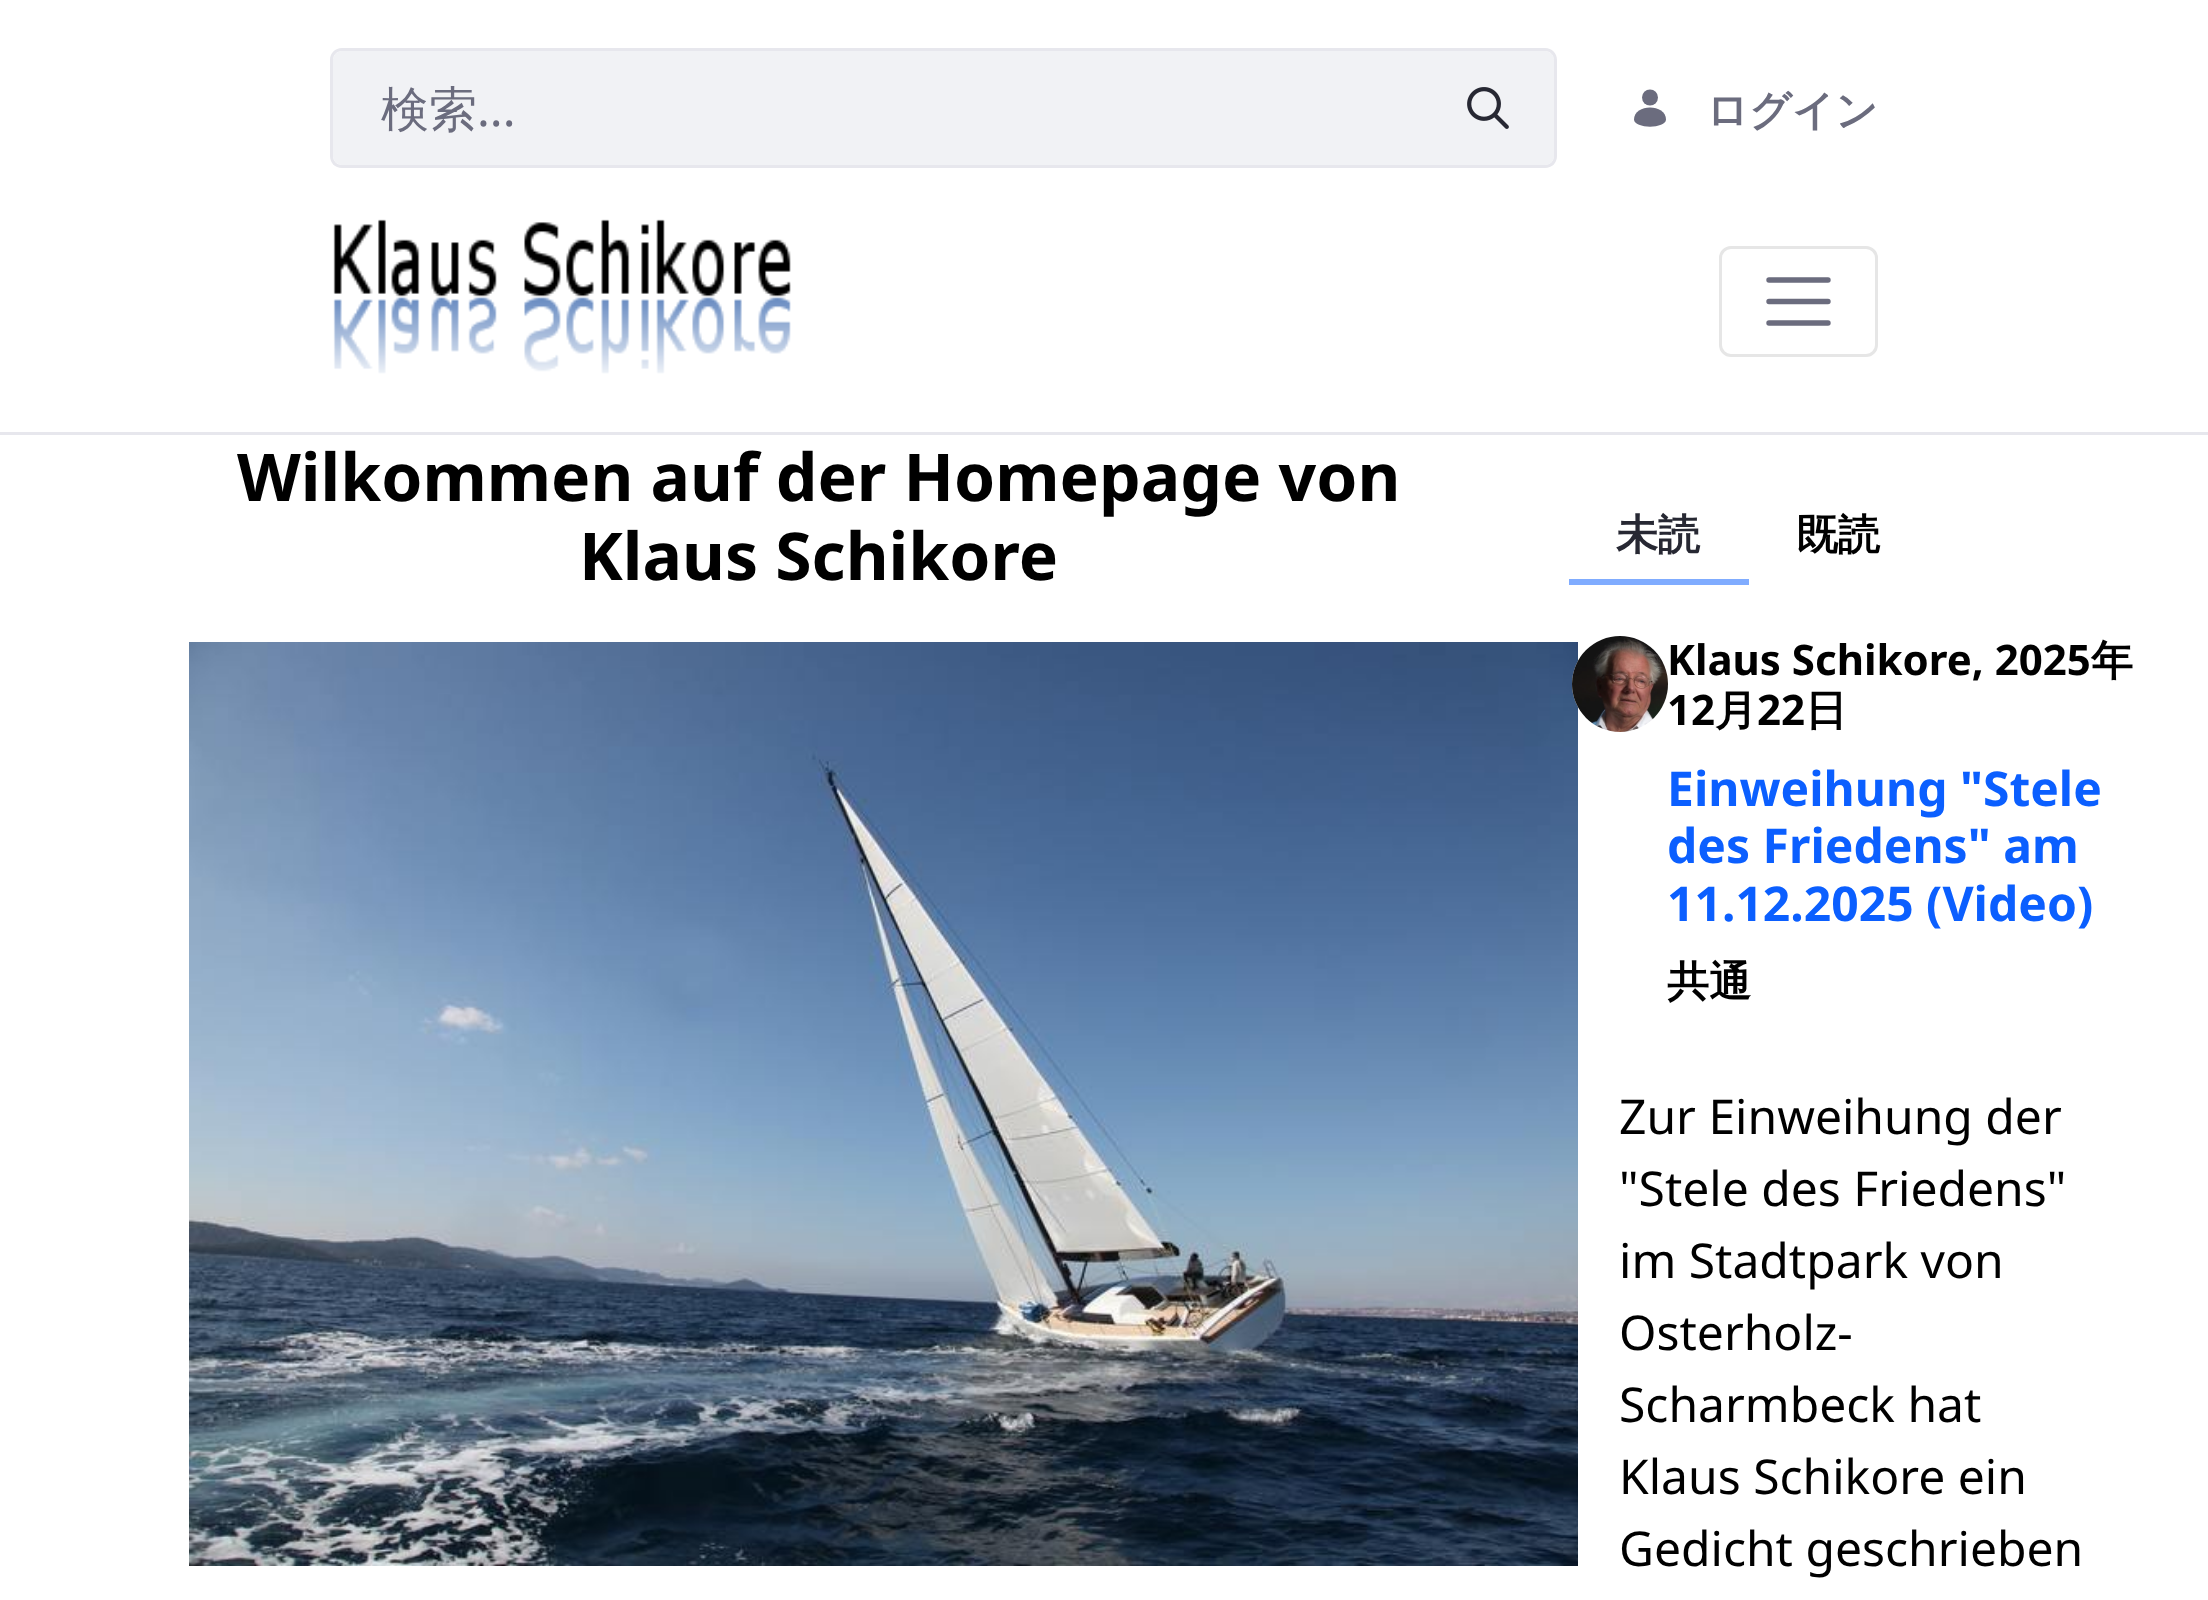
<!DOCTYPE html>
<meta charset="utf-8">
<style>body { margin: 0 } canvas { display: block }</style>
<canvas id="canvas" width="2208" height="1600"></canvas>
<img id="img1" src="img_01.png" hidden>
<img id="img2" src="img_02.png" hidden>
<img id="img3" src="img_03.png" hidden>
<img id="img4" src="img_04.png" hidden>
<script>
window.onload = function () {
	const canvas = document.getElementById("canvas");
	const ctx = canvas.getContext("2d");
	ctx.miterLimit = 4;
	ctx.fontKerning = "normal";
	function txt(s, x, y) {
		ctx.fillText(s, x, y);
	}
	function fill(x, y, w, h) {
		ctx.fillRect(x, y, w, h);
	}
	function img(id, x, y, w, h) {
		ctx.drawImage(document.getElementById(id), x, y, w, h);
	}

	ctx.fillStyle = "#FFFFFF";
	fill(0, 0, 2208, 1600);
	ctx.fillStyle = "#F1F2F5";
	ctx.beginPath();
	ctx.roundRect(333, 51, 1089, 114, [9, 0, 0, 9]);
	ctx.fill();
	ctx.fillStyle = "#E7E7ED";
	ctx.beginPath();
	ctx.moveTo(342, 48);
	ctx.lineTo(1422, 48);
	ctx.lineTo(1422, 168);
	ctx.lineTo(342, 168);
	ctx.bezierCurveTo(335, 168, 330, 163, 330, 156);
	ctx.lineTo(330, 60);
	ctx.bezierCurveTo(330, 53, 335, 48, 342, 48);
	ctx.closePath();
	ctx.moveTo(342, 51);
	ctx.lineTo(1422, 51);
	ctx.lineTo(1422, 165);
	ctx.lineTo(342, 165);
	ctx.bezierCurveTo(337, 165, 333, 161, 333, 156);
	ctx.lineTo(333, 60);
	ctx.bezierCurveTo(333, 55, 337, 51, 342, 51);
	ctx.closePath();
	ctx.fill("evenodd");
	ctx.fillStyle = "#F1F2F5";
	ctx.beginPath();
	ctx.roundRect(1422, 51, 132, 114, [0, 9, 9, 0]);
	ctx.fill();
	ctx.fillStyle = "#E7E7ED";
	ctx.beginPath();
	ctx.moveTo(1422, 48);
	ctx.lineTo(1545, 48);
	ctx.bezierCurveTo(1552, 48, 1557, 53, 1557, 60);
	ctx.lineTo(1557, 156);
	ctx.bezierCurveTo(1557, 163, 1552, 168, 1545, 168);
	ctx.lineTo(1422, 168);
	ctx.closePath();
	ctx.moveTo(1422, 51);
	ctx.lineTo(1545, 51);
	ctx.bezierCurveTo(1550, 51, 1554, 55, 1554, 60);
	ctx.lineTo(1554, 156);
	ctx.bezierCurveTo(1554, 161, 1550, 165, 1545, 165);
	ctx.lineTo(1422, 165);
	ctx.closePath();
	ctx.fill("evenodd");
	img("img1", 1467, 87, 42, 42);
	ctx.fillStyle = "#6B6C7E";
	ctx.beginPath();
	ctx.arc(1650, 97.5, 8, 0, Math.PI * 2);
	ctx.fill();
	ctx.beginPath();
	ctx.moveTo(1666, 119.5);
	ctx.bezierCurveTo(1666, 129, 1634, 129, 1634, 119.5);
	ctx.bezierCurveTo(1634, 103.5, 1666, 103.5, 1666, 119.5);
	ctx.closePath();
	ctx.fill();
	ctx.fillStyle = "#E7E7ED";
	fill(0, 432, 2208, 3);
	img("img2", 333, 219, 458, 155);
	ctx.beginPath();
	ctx.roundRect(1720.5, 247.5, 156, 108, 10.5);
	ctx.strokeStyle = "#E6E6E6";
	ctx.lineWidth = 3;
	ctx.stroke();
	ctx.beginPath();
	ctx.moveTo(1769, 280);
	ctx.lineTo(1828, 280);
	ctx.moveTo(1769, 301.5);
	ctx.lineTo(1828, 301.5);
	ctx.moveTo(1769, 323);
	ctx.lineTo(1828, 323);
	ctx.strokeStyle = "#6B6C7E";
	ctx.lineWidth = 5.4;
	ctx.lineCap = "round";
	ctx.stroke();
	img("img3", 189, 642, 1389, 924);
	ctx.fillStyle = "#80ACFF";
	fill(1569, 579, 180, 6);
	ctx.fillStyle = "#FFFFFF";
	ctx.beginPath();
	ctx.arc(1620, 684, 48, 0, Math.PI * 2);
	ctx.fill();
	img("img4", 1572, 636, 96, 96);
	ctx.font = "500 48px WenQuanYi Zen Hei";
	ctx.fillStyle = "#6B6C7E";
	txt("検索", 381, 126);
	ctx.font = "48px Noto Sans";
	txt("...", 477, 126);
	ctx.font = "bold 42px WenQuanYi Zen Hei";
	txt("ログイン", 1706, 125);
	ctx.font = "bold 66px Noto Sans";
	ctx.fillStyle = "#000000";
	txt("Wilkommen auf der Homepage von", 237, 501);
	txt("Klaus Schikore", 579, 580);
	ctx.font = "bold 42px WenQuanYi Zen Hei";
	ctx.fillStyle = "#272833";
	txt("未読", 1616, 549);
	ctx.fillStyle = "#000000";
	txt("既読", 1796, 549);
	ctx.font = "bold 42px Noto Sans";
	txt("Klaus Schikore, 2025", 1667, 675);
	ctx.font = "bold 42px WenQuanYi Zen Hei";
	txt("年", 2091, 675);
	ctx.font = "bold 42px Noto Sans";
	txt("12", 1667, 725);
	ctx.font = "bold 42px WenQuanYi Zen Hei";
	txt("月", 1715, 725);
	ctx.font = "bold 42px Noto Sans";
	txt("22", 1757, 725);
	ctx.font = "bold 42px WenQuanYi Zen Hei";
	txt("日", 1805, 725);
	ctx.font = "bold 48px Noto Sans";
	ctx.fillStyle = "#0B5FFF";
	txt("Einweihung \"Stele", 1667, 806);
	txt("des Friedens\" am", 1667, 863);
	txt("11.12.2025 (Video)", 1667, 921);
	ctx.font = "bold 42px WenQuanYi Zen Hei";
	ctx.fillStyle = "#000000";
	txt("共通", 1667, 996);
	ctx.font = "48px Noto Sans";
	txt("Zur Einweihung der", 1619, 1134);
	txt("\"Stele des Friedens\"", 1619, 1206);
	txt("im Stadtpark von", 1619, 1278);
	txt("Osterholz-", 1619, 1350);
	txt("Scharmbeck hat", 1619, 1422);
	txt("Klaus Schikore ein", 1619, 1494);
	txt("Gedicht geschrieben", 1619, 1566);
};
</script>
